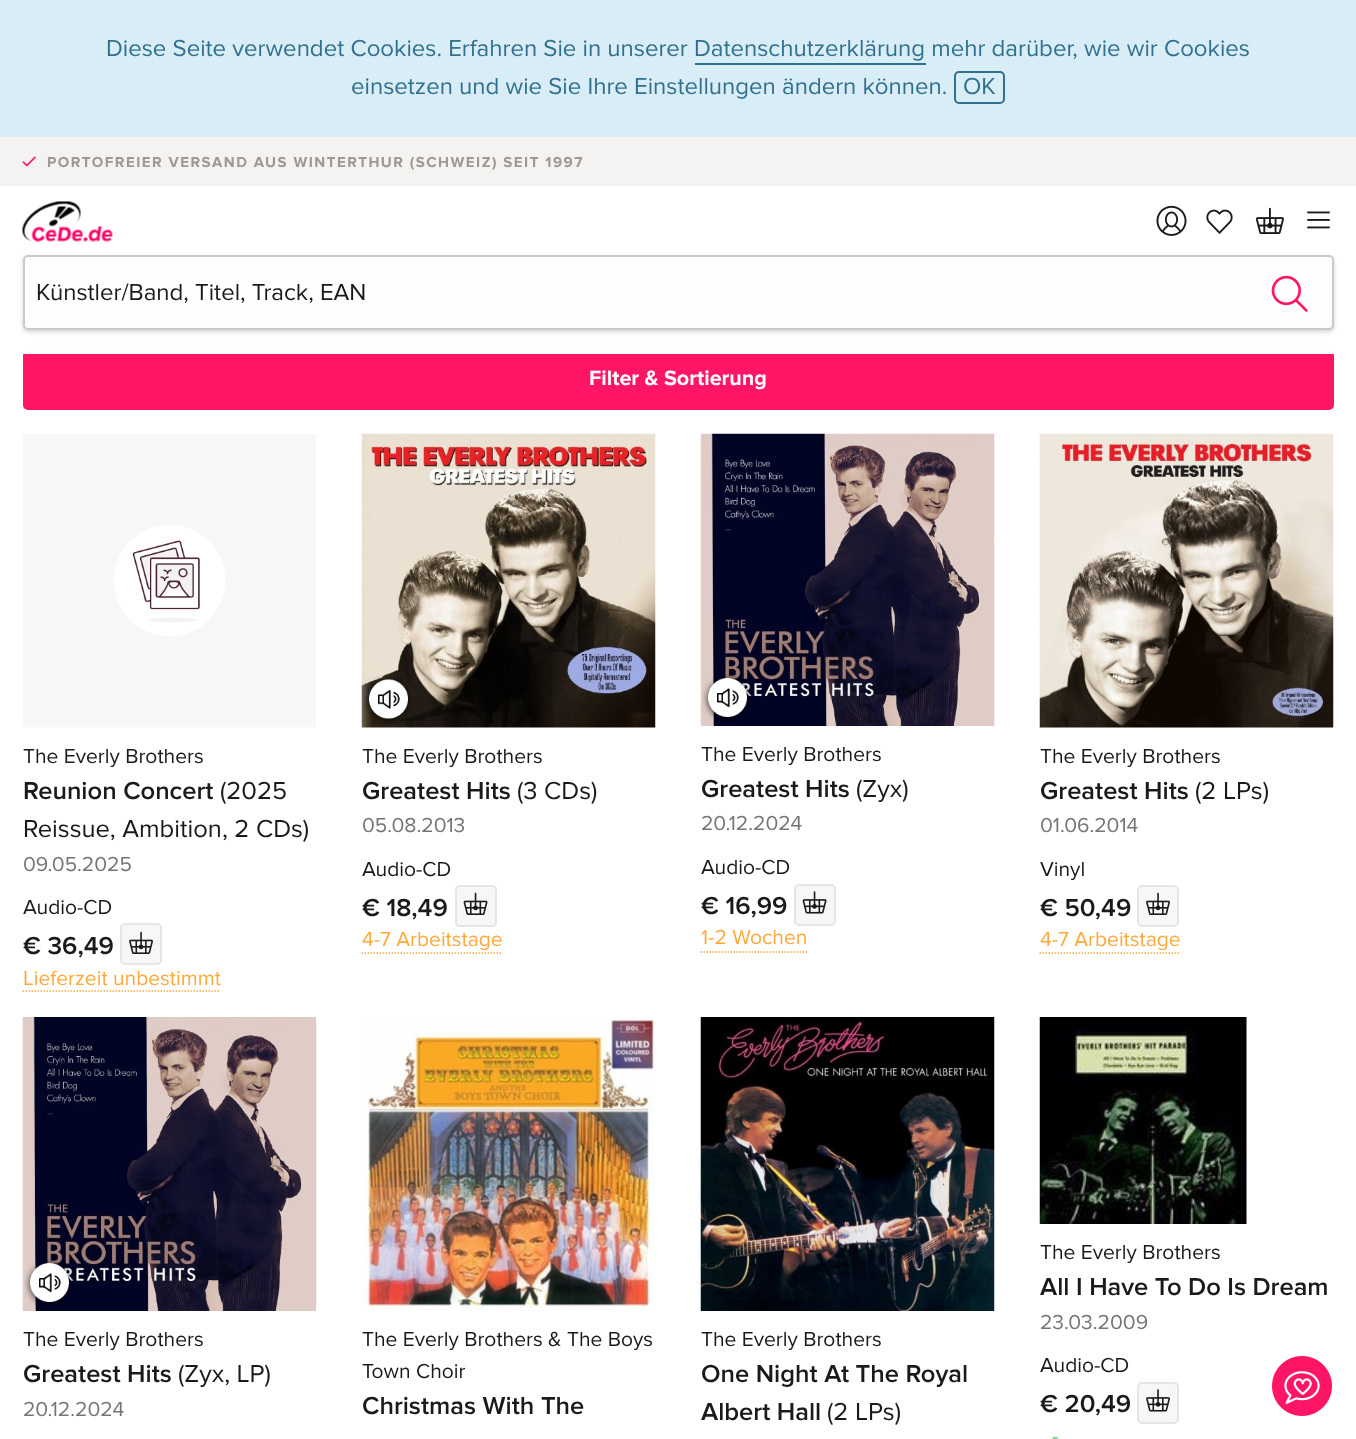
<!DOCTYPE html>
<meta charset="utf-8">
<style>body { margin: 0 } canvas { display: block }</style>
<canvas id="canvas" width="1356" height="1439"></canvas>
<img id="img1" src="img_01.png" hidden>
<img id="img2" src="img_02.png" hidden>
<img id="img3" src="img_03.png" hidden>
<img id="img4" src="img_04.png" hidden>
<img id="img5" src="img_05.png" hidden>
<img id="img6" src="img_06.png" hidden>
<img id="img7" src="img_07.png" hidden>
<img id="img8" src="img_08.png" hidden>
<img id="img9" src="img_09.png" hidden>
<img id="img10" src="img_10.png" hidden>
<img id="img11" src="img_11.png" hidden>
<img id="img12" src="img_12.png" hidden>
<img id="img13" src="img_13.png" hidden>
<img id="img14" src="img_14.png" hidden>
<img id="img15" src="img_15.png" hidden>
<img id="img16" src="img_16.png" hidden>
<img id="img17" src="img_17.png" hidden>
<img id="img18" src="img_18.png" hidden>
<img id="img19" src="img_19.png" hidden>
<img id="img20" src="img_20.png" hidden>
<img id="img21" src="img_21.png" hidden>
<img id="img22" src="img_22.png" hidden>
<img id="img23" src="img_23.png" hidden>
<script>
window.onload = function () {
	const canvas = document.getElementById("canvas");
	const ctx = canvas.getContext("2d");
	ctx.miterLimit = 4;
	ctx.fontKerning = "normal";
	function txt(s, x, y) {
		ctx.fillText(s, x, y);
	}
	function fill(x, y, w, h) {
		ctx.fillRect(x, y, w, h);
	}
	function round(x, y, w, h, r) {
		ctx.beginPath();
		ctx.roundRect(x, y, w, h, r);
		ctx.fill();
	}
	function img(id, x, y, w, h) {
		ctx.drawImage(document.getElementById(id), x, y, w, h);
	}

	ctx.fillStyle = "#FFFFFF";
	fill(0, 0, 1356, 1439);
	ctx.fillStyle = "#FF1566";
	round(23, 350, 1311, 60, 5);
	ctx.fillStyle = "#FEFEFE";
	fill(23, 350, 1311, 4);
	ctx.fillStyle = "#D9EDF7";
	fill(0, 0, 1356, 137);
	ctx.fillStyle = "#31708F";
	fill(695, 63, 231, 2);
	ctx.beginPath();
	ctx.roundRect(955, 72, 49, 31, 4);
	ctx.strokeStyle = "#31708F";
	ctx.lineWidth = 2;
	ctx.stroke();
	ctx.fillStyle = "#F4F3F1";
	fill(0, 137, 1356, 49);
	img("img1", 22, 156, 14, 11);
	img("img2", 22, 201, 91, 41);
	img("img3", 1156, 205, 31, 31);
	img("img4", 1206, 209, 27, 25);
	img("img5", 1255, 207, 29, 27);
	img("img6", 1307, 211, 23, 18);
	ctx.fillStyle = "rgba(0, 0, 0, 0.17)";
	ctx.filter = "blur(2px)";
	ctx.beginPath();
	ctx.roundRect(23, 257, 1311, 75, 5);
	ctx.fill();
	ctx.filter = "none";
	ctx.fillStyle = "#FEFEFE";
	ctx.beginPath();
	ctx.roundRect(24, 256, 1309, 73, 4);
	ctx.fill();
	ctx.strokeStyle = "#CACACA";
	ctx.stroke();
	img("img7", 1271, 275, 37, 37);
	img("img8", 23, 434, 293, 294);
	ctx.fillStyle = "#F7F7F7";
	ctx.beginPath();
	ctx.roundRect(121, 924, 40, 40, 4);
	ctx.fill();
	ctx.strokeStyle = "#E5E5E5";
	ctx.stroke();
	img("img9", 129, 931, 24, 23);
	ctx.beginPath();
	ctx.moveTo(22.5, 991);
	ctx.lineTo(220.5, 991);
	ctx.strokeStyle = "#FFA93C";
	ctx.lineWidth = 1.5;
	ctx.setLineDash([1.5, 1.5]);
	ctx.stroke();
	img("img10", 361, 433, 295, 295);
	img("img11", 364, 675, 48, 49);
	ctx.beginPath();
	ctx.roundRect(456, 886, 40, 40, 4);
	ctx.fill();
	ctx.strokeStyle = "#E5E5E5";
	ctx.lineWidth = 2;
	ctx.setLineDash([]);
	ctx.stroke();
	img("img12", 463, 892, 25, 23);
	ctx.beginPath();
	ctx.moveTo(361.5, 953);
	ctx.lineTo(502.5, 953);
	ctx.strokeStyle = "#FFA93C";
	ctx.lineWidth = 1.5;
	ctx.setLineDash([1.5, 1.5]);
	ctx.stroke();
	img("img13", 700, 433, 295, 293);
	img("img14", 702, 674, 49, 48);
	ctx.beginPath();
	ctx.roundRect(795, 885, 40, 40, 4);
	ctx.fill();
	ctx.strokeStyle = "#E5E5E5";
	ctx.lineWidth = 2;
	ctx.setLineDash([]);
	ctx.stroke();
	img("img15", 802, 891, 25, 23);
	ctx.beginPath();
	ctx.moveTo(700.5, 952);
	ctx.lineTo(807, 952);
	ctx.strokeStyle = "#FFA93C";
	ctx.lineWidth = 1.5;
	ctx.setLineDash([1.5, 1.5]);
	ctx.stroke();
	img("img16", 1039, 433, 295, 295);
	ctx.beginPath();
	ctx.roundRect(1138, 886, 40, 40, 4);
	ctx.fill();
	ctx.strokeStyle = "#E5E5E5";
	ctx.lineWidth = 2;
	ctx.setLineDash([]);
	ctx.stroke();
	img("img9", 1146, 892, 24, 23);
	ctx.beginPath();
	ctx.moveTo(1039.5, 953);
	ctx.lineTo(1180.5, 953);
	ctx.strokeStyle = "#FFA93C";
	ctx.lineWidth = 1.5;
	ctx.setLineDash([1.5, 1.5]);
	ctx.stroke();
	img("img17", 22, 1017, 295, 294);
	img("img18", 24, 1259, 49, 48);
	img("img19", 362, 1017, 293, 294);
	img("img20", 700, 1017, 295, 294);
	img("img21", 1039, 1017, 208, 207);
	ctx.beginPath();
	ctx.roundRect(1138, 1383, 40, 40, 4);
	ctx.fill();
	ctx.strokeStyle = "#E5E5E5";
	ctx.lineWidth = 2;
	ctx.setLineDash([]);
	ctx.stroke();
	img("img22", 1146, 1389, 24, 23);
	img("img23", 1272, 1356, 60, 60);
	ctx.font = "24px Proxima Nova";
	ctx.fillStyle = "#31708F";
	txt("Diese Seite verwendet Cookies. Erfahren Sie in unserer Datenschutzerklärung mehr darüber, wie wir Cookies", 106, 56);
	txt("einsetzen und wie Sie Ihre Einstellungen ändern können.", 351, 94);
	txt("OK", 963, 94);
	ctx.letterSpacing = "1.5px";
	ctx.font = "bold 15px Proxima Nova";
	ctx.fillStyle = "#9D9993";
	txt("PORTOFREIER VERSAND AUS WINTERTHUR (SCHWEIZ) SEIT 1997", 47, 167);
	ctx.letterSpacing = "0px";
	ctx.font = "24px Proxima Nova";
	ctx.fillStyle = "#1A1A1A";
	txt("Künstler/Band, Titel, Track, EAN", 36, 300);
	ctx.font = "bold 21.5px Proxima Nova";
	ctx.fillStyle = "#FEFEFE";
	txt("Filter & Sortierung", 589, 385);
	ctx.font = "21px Proxima Nova";
	ctx.fillStyle = "#1A1A1A";
	txt("The Everly Brothers", 23, 763);
	ctx.font = "600 25.5px Proxima Nova";
	txt("Reunion Concert", 23, 799);
	ctx.font = "25.5px Proxima Nova";
	txt("(2025", 220, 799);
	txt("Reissue, Ambition, 2 CDs)", 23, 837);
	ctx.font = "21px Proxima Nova";
	ctx.fillStyle = "#767676";
	txt("09.05.2025", 23, 871);
	ctx.fillStyle = "#1A1A1A";
	txt("Audio-CD", 23, 914);
	ctx.font = "600 25.5px Proxima Nova";
	txt("€ 36,49", 23, 954);
	ctx.font = "21px Proxima Nova";
	ctx.fillStyle = "#FFA93C";
	txt("Lieferzeit unbestimmt", 23, 985);
	ctx.fillStyle = "#1A1A1A";
	txt("The Everly Brothers", 362, 763);
	ctx.font = "600 25.5px Proxima Nova";
	txt("Greatest Hits", 362, 799);
	ctx.font = "25.5px Proxima Nova";
	txt("(3 CDs)", 517, 799);
	ctx.font = "21px Proxima Nova";
	ctx.fillStyle = "#767676";
	txt("05.08.2013", 362, 832);
	ctx.fillStyle = "#1A1A1A";
	txt("Audio-CD", 362, 876);
	ctx.font = "600 25.5px Proxima Nova";
	txt("€ 18,49", 362, 916);
	ctx.font = "21px Proxima Nova";
	ctx.fillStyle = "#FFA93C";
	txt("4-7 Arbeitstage", 362, 946);
	ctx.fillStyle = "#1A1A1A";
	txt("The Everly Brothers", 701, 761);
	ctx.font = "600 25.5px Proxima Nova";
	txt("Greatest Hits", 701, 797);
	ctx.font = "25.5px Proxima Nova";
	txt("(Zyx)", 856, 797);
	ctx.font = "21px Proxima Nova";
	ctx.fillStyle = "#767676";
	txt("20.12.2024", 701, 830);
	ctx.fillStyle = "#1A1A1A";
	txt("Audio-CD", 701, 874);
	ctx.font = "600 25.5px Proxima Nova";
	txt("€ 16,99", 701, 914);
	ctx.font = "21px Proxima Nova";
	ctx.fillStyle = "#FFA93C";
	txt("1-2 Wochen", 701, 944);
	ctx.fillStyle = "#1A1A1A";
	txt("The Everly Brothers", 1040, 763);
	ctx.font = "600 25.5px Proxima Nova";
	txt("Greatest Hits", 1040, 799);
	ctx.font = "25.5px Proxima Nova";
	txt("(2 LPs)", 1195, 799);
	ctx.font = "21px Proxima Nova";
	ctx.fillStyle = "#767676";
	txt("01.06.2014", 1040, 832);
	ctx.fillStyle = "#1A1A1A";
	txt("Vinyl", 1040, 876);
	ctx.font = "600 25.5px Proxima Nova";
	txt("€ 50,49", 1040, 916);
	ctx.font = "21px Proxima Nova";
	ctx.fillStyle = "#FFA93C";
	txt("4-7 Arbeitstage", 1040, 946);
	ctx.fillStyle = "#1A1A1A";
	txt("The Everly Brothers", 23, 1346);
	ctx.font = "600 25.5px Proxima Nova";
	txt("Greatest Hits", 23, 1382);
	ctx.font = "25.5px Proxima Nova";
	txt("(Zyx, LP)", 178, 1382);
	ctx.font = "21px Proxima Nova";
	ctx.fillStyle = "#767676";
	txt("20.12.2024", 23, 1416);
	ctx.fillStyle = "#1A1A1A";
	txt("The Everly Brothers & The Boys", 362, 1346);
	txt("Town Choir", 362, 1378);
	ctx.font = "600 25.5px Proxima Nova";
	txt("Christmas With The", 362, 1414);
	ctx.font = "21px Proxima Nova";
	txt("The Everly Brothers", 701, 1346);
	ctx.font = "600 25.5px Proxima Nova";
	txt("One Night At The Royal", 701, 1382);
	txt("Albert Hall", 701, 1420);
	ctx.font = "25.5px Proxima Nova";
	txt("(2 LPs)", 827, 1420);
	ctx.font = "21px Proxima Nova";
	txt("The Everly Brothers", 1040, 1259);
	ctx.font = "600 25.5px Proxima Nova";
	txt("All I Have To Do Is Dream", 1040, 1295);
	ctx.font = "21px Proxima Nova";
	ctx.fillStyle = "#767676";
	txt("23.03.2009", 1040, 1329);
	ctx.fillStyle = "#1A1A1A";
	txt("Audio-CD", 1040, 1372);
	ctx.font = "600 25.5px Proxima Nova";
	txt("€ 20,49", 1040, 1412);
	ctx.font = "21px Proxima Nova";
	ctx.fillStyle = "#6BBD6E";
	txt("-", 1052, 1443);
};
</script>
